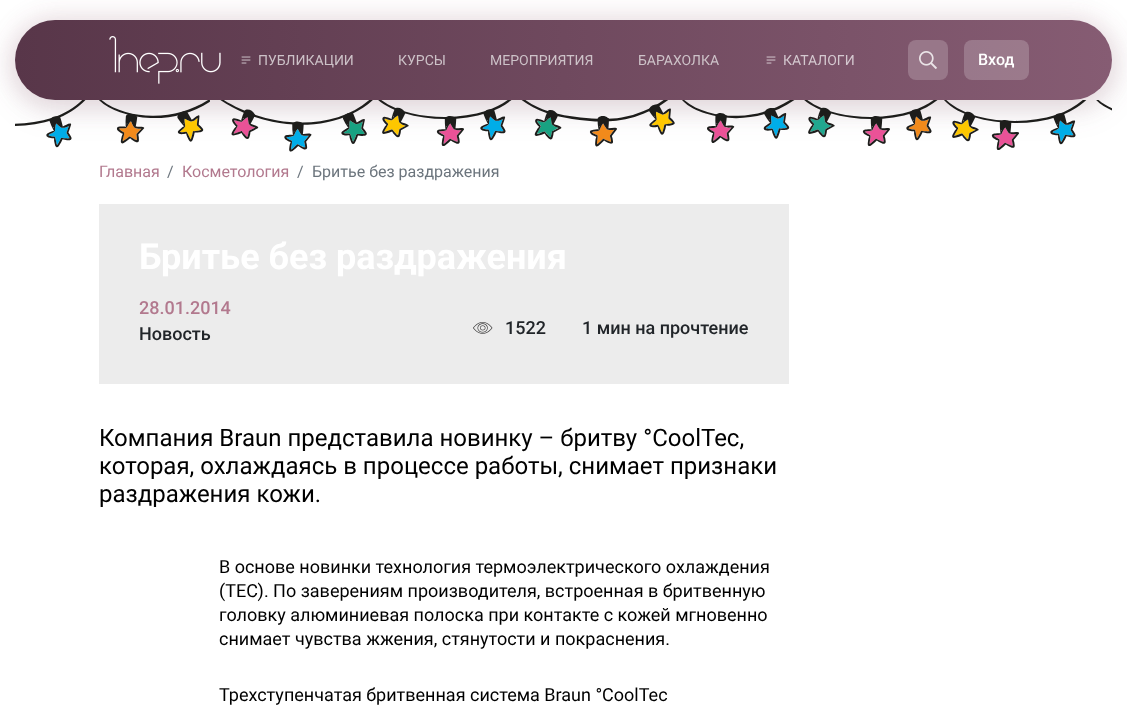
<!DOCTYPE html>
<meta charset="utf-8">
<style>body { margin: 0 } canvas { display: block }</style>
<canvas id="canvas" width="1127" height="711"></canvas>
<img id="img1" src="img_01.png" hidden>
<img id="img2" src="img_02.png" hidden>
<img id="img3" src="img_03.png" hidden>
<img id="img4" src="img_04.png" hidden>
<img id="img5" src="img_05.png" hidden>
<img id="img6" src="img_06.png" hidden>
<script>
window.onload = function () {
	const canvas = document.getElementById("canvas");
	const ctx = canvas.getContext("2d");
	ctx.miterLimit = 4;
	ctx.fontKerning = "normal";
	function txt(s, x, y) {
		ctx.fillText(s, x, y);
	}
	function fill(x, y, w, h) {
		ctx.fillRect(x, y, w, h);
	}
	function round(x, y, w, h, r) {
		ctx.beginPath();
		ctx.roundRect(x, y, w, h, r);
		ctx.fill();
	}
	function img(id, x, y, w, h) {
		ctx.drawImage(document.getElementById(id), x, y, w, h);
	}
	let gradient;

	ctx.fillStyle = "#FFFFFF";
	fill(0, 0, 1127, 711);
	ctx.fillStyle = "rgba(88, 54, 73, 0.16)";
	ctx.filter = "blur(16px)";
	ctx.beginPath();
	ctx.roundRect(15, 28, 1097, 80, 40);
	ctx.fill();
	ctx.filter = "none";
	ctx.fillStyle = "rgba(178, 121, 142, 0.12)";
	ctx.filter = "blur(10px)";
	ctx.beginPath();
	ctx.roundRect(7, 12, 1113, 96, 48);
	ctx.fill();
	ctx.filter = "none";
	gradient = ctx.createLinearGradient(15, 60, 1112, 60);
	gradient.addColorStop(0, "#583649");
	gradient.addColorStop(1, "#865C73");
	ctx.fillStyle = gradient;
	round(15, 20, 1097, 80, 40);
	img("img1", 109, 36, 112, 48);
	img("img2", 241, 56, 10, 8);
	img("img3", 766, 56, 10, 8);
	ctx.fillStyle = "#987789";
	round(908, 40, 40, 40, 8);
	img("img4", 919, 51, 18, 18);
	ctx.fillStyle = "rgba(255, 255, 255, 0.2)";
	round(964, 40, 65, 40, 8);
	img("img5", 15, 100, 1097, 52);
	ctx.fillStyle = "#ECECEC";
	fill(99, 204, 690, 180);
	img("img6", 473, 322, 20, 12);
	ctx.font = "14px Roboto";
	ctx.fillStyle = "#CDC2C8";
	txt("ПУБЛИКАЦИИ", 258, 65);
	txt("КУРСЫ", 398, 65);
	txt("МЕРОПРИЯТИЯ", 490, 65);
	txt("БАРАХОЛКА", 638, 65);
	ctx.fillStyle = "#D4C8CF";
	txt("КАТАЛОГИ", 783, 65);
	ctx.font = "500 16px Roboto";
	ctx.fillStyle = "#FFFFFF";
	txt("Вход", 978, 65);
	ctx.font = "16px Roboto";
	ctx.fillStyle = "#B2798E";
	txt("Главная", 99, 177);
	ctx.fillStyle = "#6C757D";
	txt("/", 167, 177);
	ctx.fillStyle = "#B2798E";
	txt("Косметология", 182, 177);
	ctx.fillStyle = "#6C757D";
	txt("/", 297, 177);
	txt("Бритье без раздражения", 312, 177);
	ctx.font = "bold 36px Roboto";
	ctx.fillStyle = "#FFFFFF";
	txt("Бритье без раздражения", 139, 269);
	ctx.font = "500 18px Roboto";
	ctx.fillStyle = "#B2798E";
	txt("28.01.2014", 139, 314);
	ctx.fillStyle = "#212529";
	txt("Новость", 139, 340);
	txt("1522", 505, 334);
	txt("1 мин на прочтение", 582, 334);
	ctx.font = "24px Roboto";
	ctx.fillStyle = "#000000";
	txt("Компания Braun представила новинку – бритву °CoolTec,", 99, 446);
	txt("которая, охлаждаясь в процессе работы, снимает признаки", 99, 474);
	txt("раздражения кожи.", 99, 502);
	ctx.font = "18px Roboto";
	txt("В основе новинки технология термоэлектрического охлаждения", 219, 573);
	txt("(TEC). По заверениям производителя, встроенная в бритвенную", 219, 597);
	txt("головку алюминиевая полоска при контакте с кожей мгновенно", 219, 621);
	txt("снимает чувства жжения, стянутости и покраснения.", 219, 645);
	txt("Трехступенчатая бритвенная система Braun °CoolTec", 219, 701);
};
</script>
